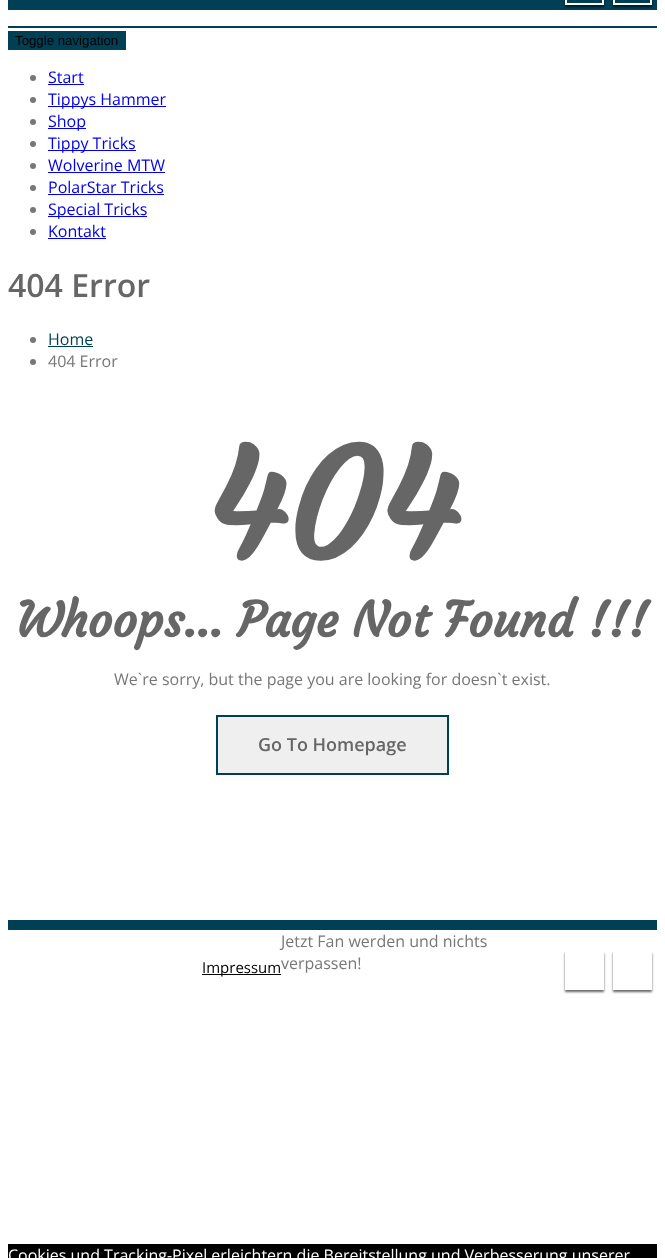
<!DOCTYPE html>
<meta charset="utf-8">
<style>body { margin: 0 } canvas { display: block }</style>
<canvas id="canvas" width="665" height="1258"></canvas>
<script>
window.onload = function () {
	const canvas = document.getElementById("canvas");
	const ctx = canvas.getContext("2d");
	ctx.miterLimit = 4;
	ctx.fontKerning = "normal";
	function txt(s, x, y) {
		ctx.fillText(s, x, y);
	}
	function fill(x, y, w, h) {
		ctx.fillRect(x, y, w, h);
	}

	ctx.fillStyle = "#FFFFFF";
	fill(0, 0, 665, 1258);
	ctx.fillStyle = "#003F54";
	fill(8, 0, 649, 10);
	ctx.save();
	ctx.beginPath();
	ctx.moveTo(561, 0);
	ctx.lineTo(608, 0);
	ctx.lineTo(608, 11);
	ctx.lineTo(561, 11);
	ctx.closePath();
	ctx.moveTo(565, -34);
	ctx.lineTo(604, -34);
	ctx.lineTo(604, 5);
	ctx.lineTo(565, 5);
	ctx.closePath();
	ctx.clip("evenodd");
	ctx.fillStyle = "rgba(0, 0, 0, 0.6)";
	ctx.filter = "blur(1px)";
	ctx.beginPath();
	ctx.rect(565, -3, 39, 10);
	ctx.fill();
	ctx.filter = "none";
	ctx.restore();
	ctx.strokeStyle = "#FFFFFF";
	ctx.lineWidth = 2;
	ctx.strokeRect(566, -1, 37, 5);
	ctx.save();
	ctx.beginPath();
	ctx.moveTo(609, 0);
	ctx.lineTo(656, 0);
	ctx.lineTo(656, 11);
	ctx.lineTo(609, 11);
	ctx.closePath();
	ctx.moveTo(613, -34);
	ctx.lineTo(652, -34);
	ctx.lineTo(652, 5);
	ctx.lineTo(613, 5);
	ctx.closePath();
	ctx.clip("evenodd");
	ctx.fillStyle = "rgba(0, 0, 0, 0.6)";
	ctx.filter = "blur(1px)";
	ctx.beginPath();
	ctx.rect(613, -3, 39, 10);
	ctx.fill();
	ctx.filter = "none";
	ctx.restore();
	ctx.strokeRect(614, -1, 37, 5);
	fill(8, 26, 649, 2);
	fill(8, 31, 118, 19);
	ctx.fillStyle = "#777777";
	ctx.beginPath();
	ctx.arc(33, 78, 3, 0, Math.PI * 2);
	ctx.fill();
	ctx.fillStyle = "#0000EE";
	fill(48, 84, 36, 1);
	ctx.fillStyle = "#777777";
	ctx.beginPath();
	ctx.arc(33, 100, 3, 0, Math.PI * 2);
	ctx.fill();
	ctx.fillStyle = "#0000EE";
	fill(48, 106, 118, 1);
	ctx.fillStyle = "#777777";
	ctx.beginPath();
	ctx.arc(33, 122, 3, 0, Math.PI * 2);
	ctx.fill();
	ctx.fillStyle = "#0000EE";
	fill(48, 128, 38, 1);
	ctx.fillStyle = "#777777";
	ctx.beginPath();
	ctx.arc(33, 144, 3, 0, Math.PI * 2);
	ctx.fill();
	ctx.fillStyle = "#0000EE";
	fill(48, 150, 88, 1);
	ctx.fillStyle = "#777777";
	ctx.beginPath();
	ctx.arc(33, 166, 3, 0, Math.PI * 2);
	ctx.fill();
	ctx.fillStyle = "#0000EE";
	fill(48, 172, 117, 1);
	ctx.fillStyle = "#777777";
	ctx.beginPath();
	ctx.arc(33, 188, 3, 0, Math.PI * 2);
	ctx.fill();
	ctx.fillStyle = "#0000EE";
	fill(48, 194, 116, 1);
	ctx.fillStyle = "#777777";
	ctx.beginPath();
	ctx.arc(33, 210, 3, 0, Math.PI * 2);
	ctx.fill();
	ctx.fillStyle = "#0000EE";
	fill(48, 216, 99, 1);
	ctx.fillStyle = "#777777";
	ctx.beginPath();
	ctx.arc(33, 232, 3, 0, Math.PI * 2);
	ctx.fill();
	ctx.fillStyle = "#0000EE";
	fill(48, 238, 58, 1);
	ctx.fillStyle = "#777777";
	ctx.beginPath();
	ctx.arc(33, 340, 3, 0, Math.PI * 2);
	ctx.fill();
	ctx.fillStyle = "#003F54";
	fill(48, 346, 45, 1);
	ctx.fillStyle = "#777777";
	ctx.beginPath();
	ctx.arc(33, 362, 3, 0, Math.PI * 2);
	ctx.fill();
	ctx.fillStyle = "#EFEFEF";
	ctx.beginPath();
	ctx.rect(217, 716, 231, 58);
	ctx.fill();
	ctx.strokeStyle = "#003F54";
	ctx.stroke();
	ctx.fillStyle = "#003F54";
	fill(8, 920, 649, 10);
	ctx.fillStyle = "#000000";
	fill(202, 974, 79, 1);
	ctx.save();
	ctx.beginPath();
	ctx.moveTo(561, 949);
	ctx.lineTo(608, 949);
	ctx.lineTo(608, 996);
	ctx.lineTo(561, 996);
	ctx.closePath();
	ctx.moveTo(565, 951);
	ctx.lineTo(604, 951);
	ctx.lineTo(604, 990);
	ctx.lineTo(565, 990);
	ctx.closePath();
	ctx.clip("evenodd");
	ctx.fillStyle = "rgba(0, 0, 0, 0.6)";
	ctx.filter = "blur(1px)";
	ctx.beginPath();
	ctx.rect(565, 953, 39, 39);
	ctx.fill();
	ctx.filter = "none";
	ctx.restore();
	ctx.save();
	ctx.beginPath();
	ctx.moveTo(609, 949);
	ctx.lineTo(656, 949);
	ctx.lineTo(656, 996);
	ctx.lineTo(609, 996);
	ctx.closePath();
	ctx.moveTo(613, 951);
	ctx.lineTo(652, 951);
	ctx.lineTo(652, 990);
	ctx.lineTo(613, 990);
	ctx.closePath();
	ctx.clip("evenodd");
	ctx.fillStyle = "rgba(0, 0, 0, 0.6)";
	ctx.filter = "blur(1px)";
	ctx.beginPath();
	ctx.rect(613, 953, 39, 39);
	ctx.fill();
	ctx.filter = "none";
	ctx.restore();
	fill(8, 1244, 649, 14);
	ctx.font = "13.25px Liberation Sans";
	txt("Toggle navigation", 15, 45);
	ctx.font = "16px Open Sans";
	ctx.fillStyle = "#0000EE";
	txt("Start", 48, 83);
	txt("Tippys Hammer", 48, 105);
	txt("Shop", 48, 127);
	txt("Tippy Tricks", 48, 149);
	txt("Wolverine MTW", 48, 171);
	txt("PolarStar Tricks", 48, 193);
	txt("Special Tricks", 48, 215);
	txt("Kontakt", 48, 237);
	ctx.font = "600 32px Open Sans";
	ctx.fillStyle = "#666666";
	txt("404 Error", 8, 297);
	ctx.font = "16px Open Sans";
	ctx.fillStyle = "#003F54";
	txt("Home", 48, 345);
	ctx.fillStyle = "#777777";
	txt("404 Error", 48, 367);
	ctx.font = "bold 150px Courgette";
	ctx.fillStyle = "#666666";
	txt("404", 206, 560);
	ctx.font = "bold 48px Courgette";
	txt("Whoops... Page Not Found !!!", 16, 637);
	ctx.font = "16px Open Sans";
	ctx.fillStyle = "#777777";
	txt("We`re sorry, but the page you are looking for doesn`t exist.", 114, 685);
	ctx.font = "600 18px Open Sans";
	ctx.fillStyle = "#666666";
	txt("Go To Homepage", 258, 751);
	ctx.font = "15px Open Sans";
	ctx.fillStyle = "#000000";
	txt("Impressum", 202, 973);
	ctx.font = "16px Open Sans";
	ctx.fillStyle = "#777777";
	txt("Jetzt Fan werden und nichts", 281, 947);
	txt("verpassen!", 281, 969);
	ctx.fillStyle = "#FFFFFF";
	txt("Cookies und Tracking-Pixel erleichtern die Bereitstellung und Verbesserung unserer", 8, 1261);
};
</script>
